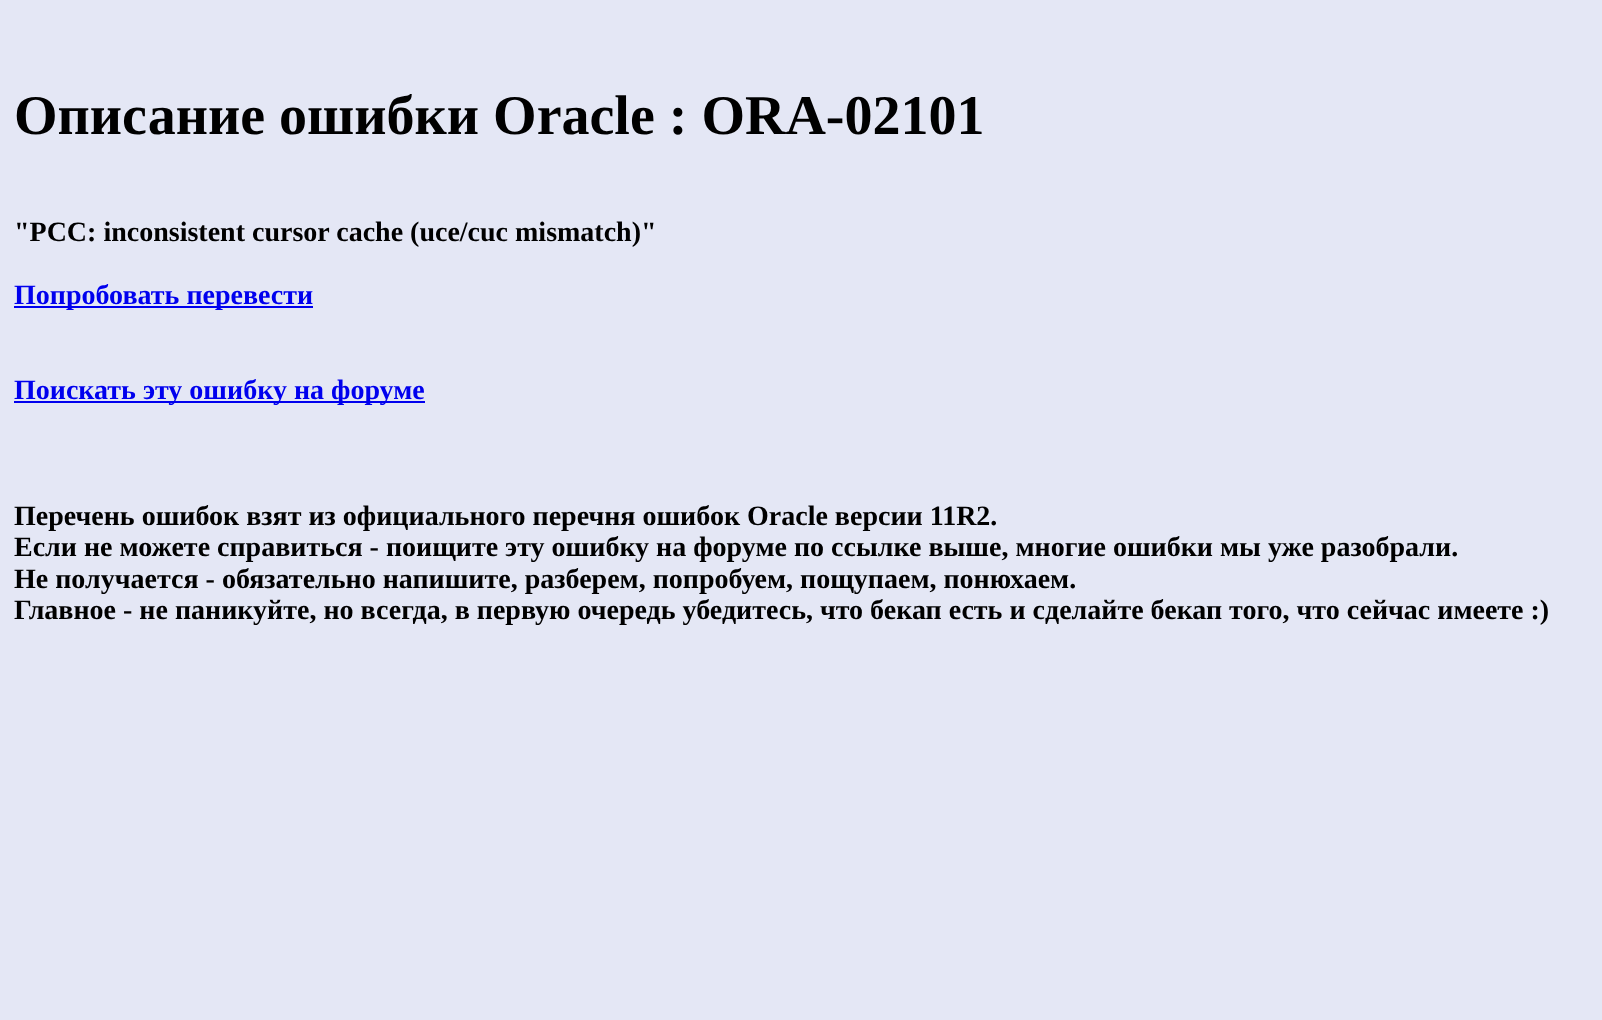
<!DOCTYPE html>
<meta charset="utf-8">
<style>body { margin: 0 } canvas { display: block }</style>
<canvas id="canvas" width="1602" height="1020"></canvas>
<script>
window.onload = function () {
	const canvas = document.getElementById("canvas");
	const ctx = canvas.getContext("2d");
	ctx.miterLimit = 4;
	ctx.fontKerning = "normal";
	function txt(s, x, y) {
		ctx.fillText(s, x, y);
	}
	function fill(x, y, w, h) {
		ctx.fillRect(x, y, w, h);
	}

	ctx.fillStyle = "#E4E7F5";
	fill(0, 0, 1602, 1020);
	ctx.fillStyle = "#0000EE";
	fill(14, 306, 299, 2);
	fill(14, 401, 411, 2);
	ctx.font = "bold 56px Liberation Serif";
	ctx.fillStyle = "#000000";
	txt("Описание ошибки Oracle : ORA-02101", 14, 134);
	ctx.font = "bold 28px Liberation Serif";
	txt("\"PCC: inconsistent cursor cache (uce/cuc mismatch)\"", 14, 241);
	ctx.fillStyle = "#0000EE";
	txt("Попробовать перевести", 14, 304);
	txt("Поискать эту ошибку на форуме", 14, 399);
	ctx.fillStyle = "#000000";
	txt("Перечень ошибок взят из официального перечня ошибок Oracle версии 11R2.", 14, 525);
	txt("Если не можете справиться - поищите эту ошибку на форуме по ссылке выше, многие ошибки мы уже разобрали.", 14, 556);
	txt("Не получается - обязательно напишите, разберем, попробуем, пощупаем, понюхаем.", 14, 588);
	txt("Главное - не паникуйте, но всегда, в первую очередь убедитесь, что бекап есть и сделайте бекап того, что сейчас имеете :)", 14, 619);
};
</script>
